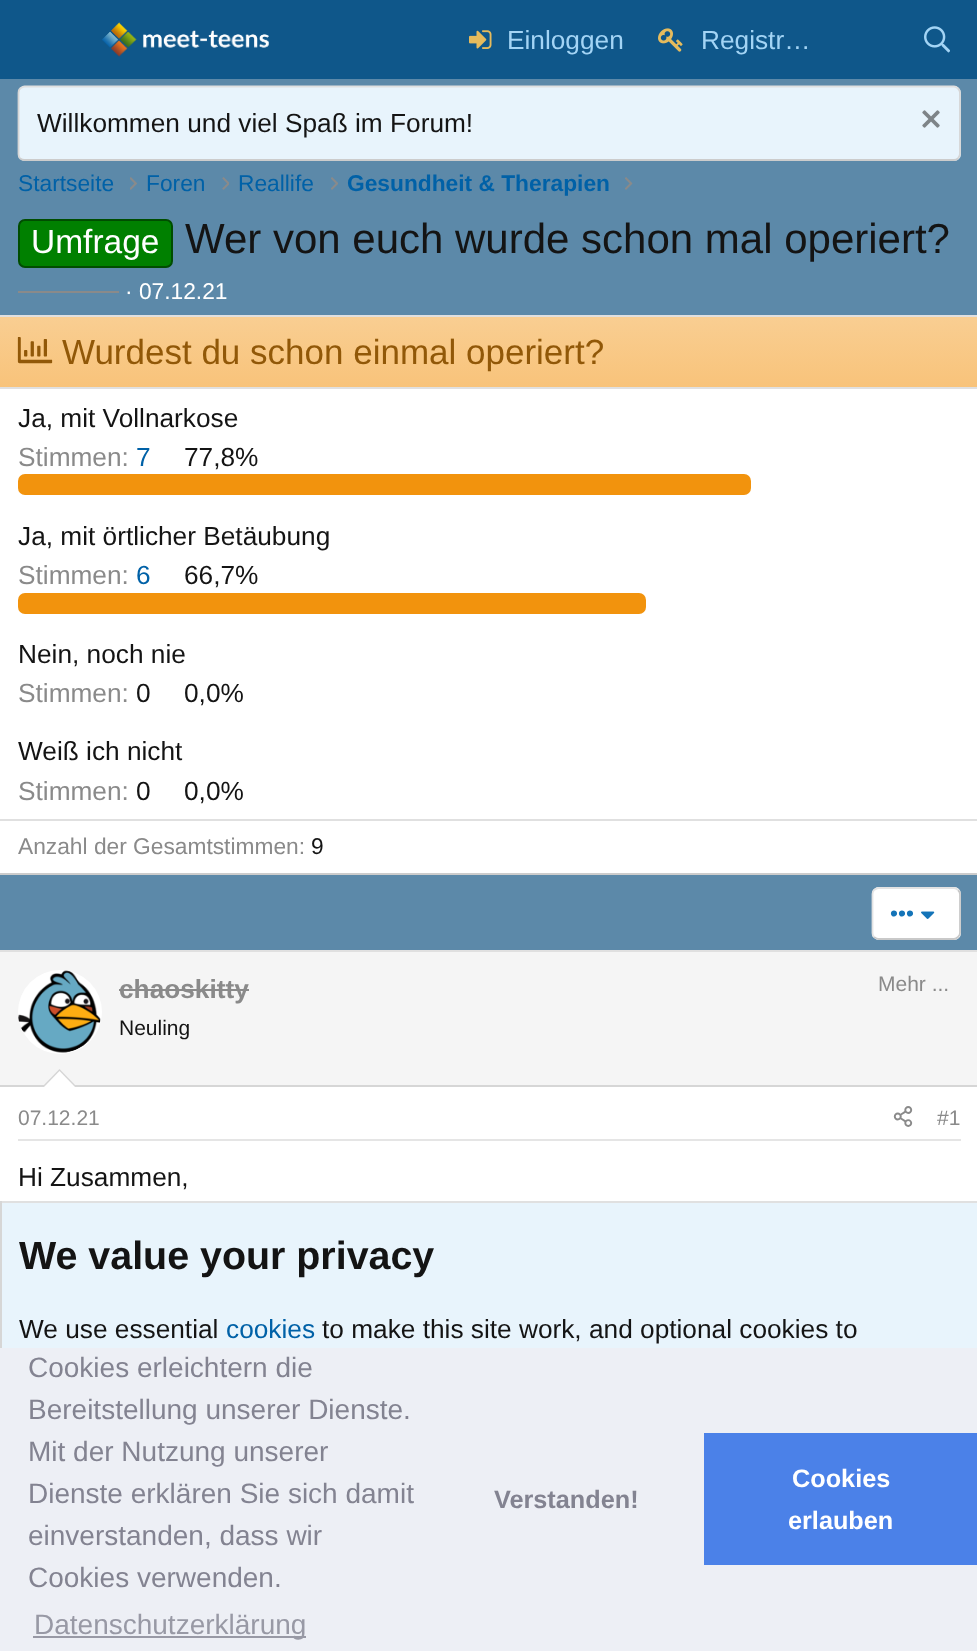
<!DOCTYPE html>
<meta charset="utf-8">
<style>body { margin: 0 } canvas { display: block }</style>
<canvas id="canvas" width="977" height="1651"></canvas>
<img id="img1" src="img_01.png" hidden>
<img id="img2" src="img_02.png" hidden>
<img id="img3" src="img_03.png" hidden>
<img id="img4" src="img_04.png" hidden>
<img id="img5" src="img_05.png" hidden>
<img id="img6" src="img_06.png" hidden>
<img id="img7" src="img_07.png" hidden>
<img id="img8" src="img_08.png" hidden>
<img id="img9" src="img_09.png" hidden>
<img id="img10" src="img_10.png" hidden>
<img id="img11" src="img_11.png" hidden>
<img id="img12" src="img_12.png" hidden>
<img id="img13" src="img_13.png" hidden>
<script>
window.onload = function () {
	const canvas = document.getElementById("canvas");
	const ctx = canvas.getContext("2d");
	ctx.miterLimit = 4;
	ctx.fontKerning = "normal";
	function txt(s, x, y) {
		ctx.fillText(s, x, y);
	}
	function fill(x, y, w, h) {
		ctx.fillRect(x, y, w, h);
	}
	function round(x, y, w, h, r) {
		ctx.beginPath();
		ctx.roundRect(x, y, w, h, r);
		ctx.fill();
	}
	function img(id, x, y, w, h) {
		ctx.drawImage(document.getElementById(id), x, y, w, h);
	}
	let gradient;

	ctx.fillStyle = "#5C89A9";
	fill(0, 0, 977, 1651);
	ctx.fillStyle = "#0F578A";
	fill(0, 0, 977, 79);
	img("img1", 102, 22, 168, 35);
	img("img2", 469, 30, 23, 19);
	img("img3", 658, 28, 25, 24);
	img("img4", 924, 26, 26, 27);
	ctx.fillStyle = "#E8F4FC";
	round(18, 86, 943, 75, 7);
	ctx.beginPath();
	ctx.moveTo(20, 88.5);
	ctx.bezierCurveTo(21.5, 87.5, 23, 86.5, 24.5, 86.5);
	ctx.lineTo(954, 86.5);
	ctx.bezierCurveTo(955.5, 86.5, 957, 87.5, 958, 88.5);
	ctx.strokeStyle = "#E0E0E0";
	ctx.lineWidth = 1.8;
	ctx.stroke();
	ctx.beginPath();
	ctx.moveTo(958, 88.5);
	ctx.bezierCurveTo(959, 89.5, 960, 91, 960, 93);
	ctx.lineTo(960, 154);
	ctx.bezierCurveTo(960, 155.5, 959, 157, 958, 158.5);
	ctx.strokeStyle = "#D6D6D6";
	ctx.stroke();
	ctx.beginPath();
	ctx.moveTo(958, 158.5);
	ctx.bezierCurveTo(957, 159.5, 955.5, 160, 954, 160);
	ctx.lineTo(24.5, 160);
	ctx.bezierCurveTo(23, 160, 21.5, 159.5, 20, 158.5);
	ctx.strokeStyle = "#CCCCCC";
	ctx.stroke();
	ctx.beginPath();
	ctx.moveTo(20, 158.5);
	ctx.bezierCurveTo(19, 157, 18.5, 155.5, 18.5, 154);
	ctx.lineTo(18.5, 93);
	ctx.bezierCurveTo(18.5, 91, 19, 89.5, 20, 88.5);
	ctx.strokeStyle = "#D6D6D6";
	ctx.stroke();
	img("img5", 922, 110, 18, 18);
	img("img6", 130, 177, 7, 13);
	img("img7", 222, 177, 7, 13);
	img("img8", 331, 177, 7, 13);
	img("img9", 625, 177, 8, 13);
	ctx.fillStyle = "#008000";
	ctx.beginPath();
	ctx.roundRect(19, 220, 153, 47, 6);
	ctx.fill();
	ctx.strokeStyle = "#004D00";
	ctx.lineWidth = 2;
	ctx.stroke();
	ctx.fillStyle = "#8A8A8A";
	fill(18, 291, 101, 2);
	ctx.fillStyle = "#FFFFFF";
	fill(0, 389, 977, 484);
	ctx.fillStyle = "#E0E0E0";
	fill(0, 315, 977, 2);
	ctx.fillStyle = "#CCCCCC";
	fill(0, 873, 977, 2);
	gradient = ctx.createLinearGradient(489, 387, 489, 317);
	gradient.addColorStop(0, "#F8C37A");
	gradient.addColorStop(1, "#F9CE92");
	ctx.fillStyle = gradient;
	fill(0, 317, 977, 70);
	ctx.fillStyle = "#E0E0E0";
	fill(0, 387, 977, 2);
	img("img10", 17, 337, 36, 27);
	ctx.fillStyle = "#F2930D";
	round(18, 474, 733, 21, 7);
	round(18, 593, 628, 21, 7);
	ctx.fillStyle = "#E0E0E0";
	fill(0, 819, 977, 2);
	ctx.fillStyle = "#FFFFFF";
	round(872, 887, 89, 53, 7);
	ctx.beginPath();
	ctx.moveTo(958, 890);
	ctx.bezierCurveTo(959, 891, 960, 892.5, 960, 894);
	ctx.lineTo(960, 933);
	ctx.bezierCurveTo(960, 934.5, 959, 936, 958, 937);
	ctx.bezierCurveTo(957, 938, 955.5, 939, 954, 939);
	ctx.lineTo(878.5, 939);
	ctx.bezierCurveTo(877, 939, 875.5, 938, 874, 937);
	ctx.strokeStyle = "#C9C9C9";
	ctx.lineWidth = 1.8;
	ctx.stroke();
	ctx.beginPath();
	ctx.moveTo(874, 937);
	ctx.bezierCurveTo(873, 936, 872.5, 934.5, 872.5, 933);
	ctx.lineTo(872.5, 894);
	ctx.bezierCurveTo(872.5, 892.5, 873, 891, 874, 890);
	ctx.bezierCurveTo(875.5, 889, 877, 888, 878.5, 888);
	ctx.lineTo(954, 888);
	ctx.bezierCurveTo(955.5, 888, 957, 889, 958, 890);
	ctx.strokeStyle = "#E3E3E3";
	ctx.stroke();
	img("img11", 921, 911, 14, 8);
	fill(0, 1087, 977, 114);
	ctx.fillStyle = "#E0E0E0";
	fill(0, 950, 977, 2);
	ctx.fillStyle = "#F5F5F5";
	fill(0, 952, 977, 133);
	ctx.fillStyle = "#D6D6D6";
	fill(0, 1085, 977, 2);
	ctx.fillStyle = "#FFFFFF";
	ctx.beginPath();
	ctx.arc(60, 1012, 42, 0, Math.PI * 2);
	ctx.fill();
	img("img12", 18, 970, 83, 83);
	ctx.fillStyle = "#8A8A8A";
	fill(119, 989, 130, 2);
	ctx.fillStyle = "#D6D6D6";
	ctx.beginPath();
	ctx.moveTo(77, 1087);
	ctx.lineTo(42, 1087);
	ctx.lineTo(59.5, 1069);
	ctx.closePath();
	ctx.fill();
	ctx.fillStyle = "#FFFFFF";
	ctx.beginPath();
	ctx.moveTo(75, 1087);
	ctx.lineTo(44, 1087);
	ctx.lineTo(59.5, 1071);
	ctx.closePath();
	ctx.fill();
	ctx.fillStyle = "#E5E5E5";
	fill(18, 1139, 943, 2);
	img("img13", 893, 1106, 20, 21);
	ctx.fillStyle = "#E8F4FC";
	fill(2, 1203, 975, 145);
	ctx.fillStyle = "#E0E0E0";
	fill(0, 1201, 977, 2);
	ctx.fillStyle = "#D6D6D6";
	fill(0, 1201, 2, 147);
	ctx.fillStyle = "#EDEFF5";
	fill(0, 1348, 977, 303);
	ctx.fillStyle = "#9899A5";
	fill(33, 1636, 273, 2);
	ctx.fillStyle = "#4B81E8";
	fill(704, 1433, 273, 132);
	ctx.font = "26.25px Liberation Sans";
	ctx.fillStyle = "#A3D4F5";
	txt("Einloggen", 507, 49);
	txt("Registr…", 701, 49);
	ctx.fillStyle = "#141414";
	txt("Willkommen und viel Spaß im Forum!", 37, 132);
	ctx.font = "22.75px Liberation Sans";
	ctx.fillStyle = "#0061A7";
	txt("Startseite", 18, 191);
	txt("Foren", 146, 191);
	txt("Reallife", 238, 191);
	ctx.font = "bold 22.75px Liberation Sans";
	txt("Gesundheit & Therapien", 347, 191);
	ctx.font = "33.5px Liberation Sans";
	ctx.fillStyle = "#FFFFFF";
	txt("Umfrage", 31, 253);
	ctx.font = "42px Liberation Sans";
	ctx.fillStyle = "#141414";
	txt("Wer von euch wurde schon mal operiert?", 185, 253);
	ctx.font = "22.75px Liberation Sans";
	ctx.fillStyle = "#FFFFFF";
	txt("· 07.12.21", 125, 299);
	ctx.font = "35px Liberation Sans";
	ctx.fillStyle = "#915808";
	txt("Wurdest du schon einmal operiert?", 62, 364);
	ctx.font = "26.25px Liberation Sans";
	ctx.fillStyle = "#141414";
	txt("Ja, mit Vollnarkose", 18, 427);
	ctx.fillStyle = "#8A8A8A";
	txt("Stimmen:", 18, 466);
	ctx.fillStyle = "#0061A7";
	txt("7", 136, 466);
	ctx.fillStyle = "#141414";
	txt("77,8%", 184, 466);
	txt("Ja, mit örtlicher Betäubung", 18, 545);
	ctx.fillStyle = "#8A8A8A";
	txt("Stimmen:", 18, 584);
	ctx.fillStyle = "#0061A7";
	txt("6", 136, 584);
	ctx.fillStyle = "#141414";
	txt("66,7%", 184, 584);
	txt("Nein, noch nie", 18, 663);
	ctx.fillStyle = "#8A8A8A";
	txt("Stimmen:", 18, 702);
	ctx.fillStyle = "#141414";
	txt("0", 136, 702);
	txt("0,0%", 184, 702);
	txt("Weiß ich nicht", 18, 760);
	ctx.fillStyle = "#8A8A8A";
	txt("Stimmen:", 18, 800);
	ctx.fillStyle = "#141414";
	txt("0", 136, 800);
	txt("0,0%", 184, 800);
	ctx.font = "22.75px Liberation Sans";
	ctx.fillStyle = "#8A8A8A";
	txt("Anzahl der Gesamtstimmen:", 18, 854);
	ctx.fillStyle = "#141414";
	txt("9", 311, 854);
	ctx.fillStyle = "#1474B8";
	txt("•••", 890, 921);
	ctx.font = "bold 26.25px Liberation Sans";
	ctx.fillStyle = "#8A8A8A";
	txt("chaoskitty", 119, 998);
	ctx.font = "21px Liberation Sans";
	ctx.fillStyle = "#141414";
	txt("Neuling", 119, 1035);
	ctx.fillStyle = "#8A8A8A";
	txt("Mehr ...", 878, 991);
	txt("07.12.21", 18, 1125);
	txt("#1", 937, 1125);
	ctx.font = "26.25px Liberation Sans";
	ctx.fillStyle = "#141414";
	txt("Hi Zusammen,", 18, 1186);
	ctx.font = "bold 39.4px Liberation Sans";
	txt("We value your privacy", 19, 1269);
	ctx.font = "26.25px Liberation Sans";
	txt("We use essential", 19, 1338);
	ctx.fillStyle = "#0061A7";
	txt("cookies", 226, 1338);
	ctx.fillStyle = "#141414";
	txt("to make this site work, and optional cookies to", 322, 1338);
	ctx.font = "28px Liberation Sans";
	ctx.fillStyle = "#838391";
	txt("Cookies erleichtern die", 28, 1377);
	txt("Bereitstellung unserer Dienste.", 28, 1419);
	txt("Mit der Nutzung unserer", 28, 1461);
	txt("Dienste erklären Sie sich damit", 28, 1503);
	txt("einverstanden, dass wir", 28, 1545);
	txt("Cookies verwenden.", 28, 1587);
	ctx.fillStyle = "#9899A5";
	txt("Datenschutzerklärung", 34, 1634);
	ctx.font = "bold 25.25px Liberation Sans";
	ctx.fillStyle = "#838391";
	txt("Verstanden!", 494, 1508);
	ctx.fillStyle = "#FFFFFF";
	txt("Cookies", 792, 1487);
	txt("erlauben", 788, 1529);
};
</script>
